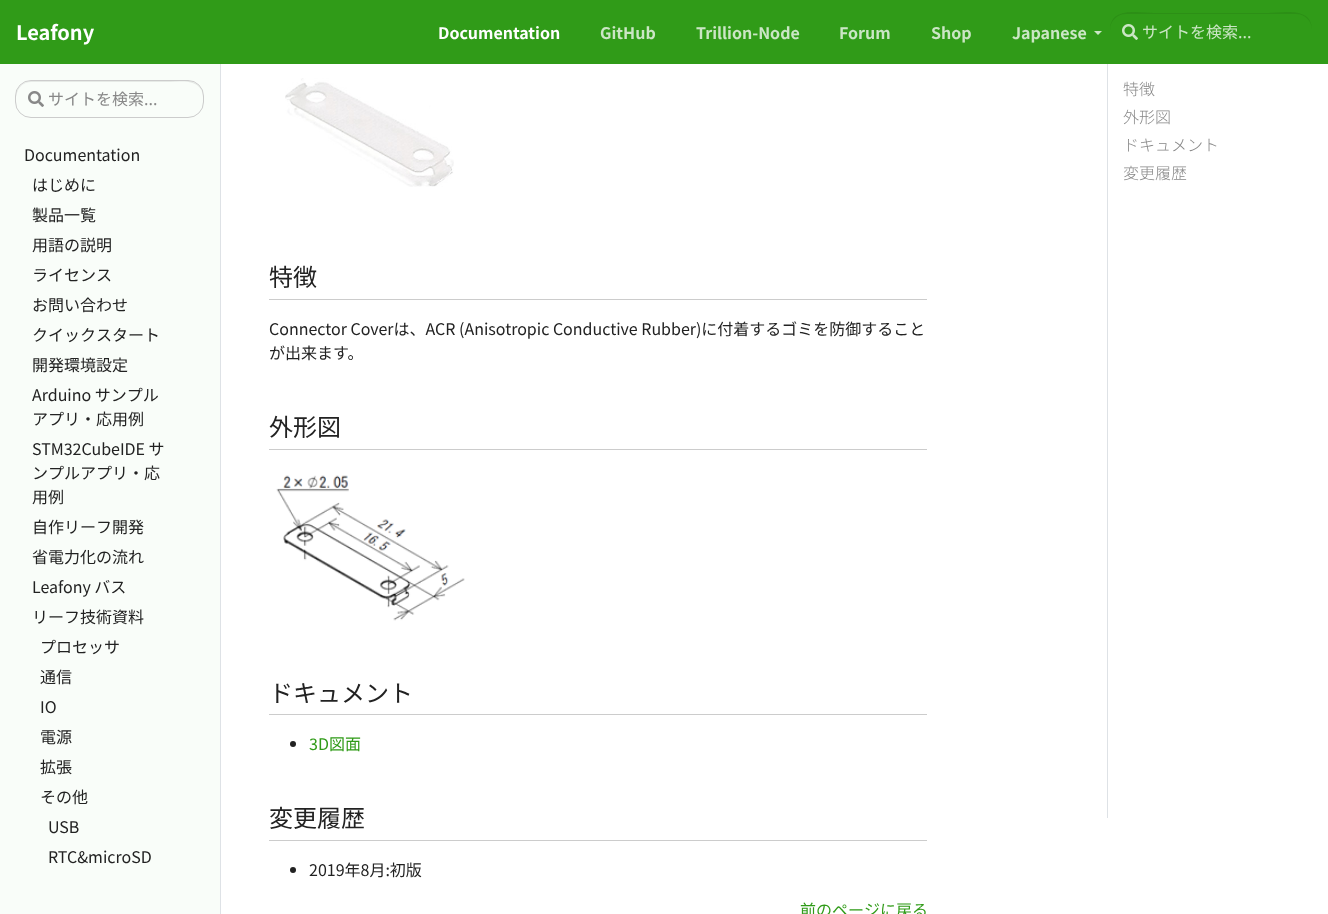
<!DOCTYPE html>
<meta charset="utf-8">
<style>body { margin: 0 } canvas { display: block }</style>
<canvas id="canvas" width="1328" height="914"></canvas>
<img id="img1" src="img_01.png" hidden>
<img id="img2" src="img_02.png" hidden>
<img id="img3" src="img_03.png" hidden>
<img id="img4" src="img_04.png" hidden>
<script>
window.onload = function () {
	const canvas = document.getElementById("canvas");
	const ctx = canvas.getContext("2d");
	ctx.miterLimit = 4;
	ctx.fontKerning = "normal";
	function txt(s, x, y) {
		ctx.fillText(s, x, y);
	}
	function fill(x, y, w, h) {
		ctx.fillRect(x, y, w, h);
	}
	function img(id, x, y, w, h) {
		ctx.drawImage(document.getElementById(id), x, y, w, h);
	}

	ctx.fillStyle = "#FFFFFF";
	fill(0, 0, 1328, 914);
	ctx.fillStyle = "#309B18";
	fill(0, 0, 1328, 64);
	ctx.fillStyle = "#CBE6C5";
	ctx.beginPath();
	ctx.moveTo(1094, 31);
	ctx.lineTo(1102, 31);
	ctx.lineTo(1098, 35);
	ctx.closePath();
	ctx.fill();
	ctx.fillStyle = "#2C8F16";
	ctx.beginPath();
	ctx.moveTo(1126, 14);
	ctx.lineTo(1296, 14);
	ctx.bezierCurveTo(1305, 14, 1312, 21, 1312, 30);
	ctx.bezierCurveTo(1312, 6, 1282, 13, 1268, 13);
	ctx.lineTo(1154, 13);
	ctx.bezierCurveTo(1140, 13, 1110, 6, 1110, 30);
	ctx.bezierCurveTo(1110, 21, 1117, 14, 1126, 14);
	ctx.closePath();
	ctx.fill();
	img("img1", 1122, 24, 16, 16);
	ctx.fillStyle = "#F9FDF9";
	fill(0, 64, 220, 850);
	ctx.fillStyle = "#DEE2E6";
	fill(220, 64, 1, 850);
	ctx.fillStyle = "#E6EAE6";
	ctx.beginPath();
	ctx.moveTo(31, 82);
	ctx.lineTo(170, 82);
	ctx.bezierCurveTo(184, 81, 203, 80, 203, 98);
	ctx.bezierCurveTo(203, 101, 203, 105, 202, 108);
	ctx.bezierCurveTo(203, 104, 203, 100, 203, 96);
	ctx.bezierCurveTo(202, 75, 175, 81, 162, 81);
	ctx.lineTo(57, 81);
	ctx.bezierCurveTo(43, 81, 16, 75, 16, 98);
	ctx.bezierCurveTo(16, 102, 16, 106, 18, 110);
	ctx.bezierCurveTo(13, 99, 17, 82, 31, 82);
	ctx.closePath();
	ctx.fill();
	ctx.beginPath();
	ctx.roundRect(15.5, 80.5, 188, 37, 15.5);
	ctx.strokeStyle = "#CCCCCC";
	ctx.stroke();
	img("img2", 28, 91, 16, 16);
	img("img3", 285, 78, 169, 109);
	ctx.fillStyle = "#CCCCCC";
	fill(269, 299, 658, 1);
	fill(269, 449, 658, 1);
	img("img4", 276, 475, 189, 146);
	fill(269, 714, 658, 1);
	ctx.fillStyle = "#222222";
	ctx.beginPath();
	ctx.arc(293, 744, 3, 0, Math.PI * 2);
	ctx.fill();
	ctx.fillStyle = "#CCCCCC";
	fill(269, 840, 658, 1);
	ctx.fillStyle = "#222222";
	ctx.beginPath();
	ctx.arc(293, 870, 3, 0, Math.PI * 2);
	ctx.fill();
	ctx.fillStyle = "#DEE2E6";
	fill(1107, 64, 1, 754);
	ctx.font = "bold 20px Noto Sans JP";
	ctx.fillStyle = "#FFFFFF";
	txt("Leafony", 16, 40);
	ctx.font = "bold 16px Noto Sans JP";
	txt("Documentation", 438, 39);
	ctx.fillStyle = "#CBE6C5";
	txt("GitHub", 600, 39);
	txt("Trillion-Node", 696, 39);
	txt("Forum", 839, 39);
	txt("Shop", 931, 39);
	txt("Japanese", 1012, 39);
	ctx.font = "16px Noto Sans JP";
	txt("サイトを検索...", 1142, 38);
	ctx.fillStyle = "#888888";
	txt("サイトを検索...", 48, 105);
	ctx.fillStyle = "#222222";
	txt("Documentation", 24, 161);
	txt("はじめに", 32, 191);
	txt("製品一覧", 32, 221);
	txt("用語の説明", 32, 251);
	txt("ライセンス", 32, 281);
	txt("お問い合わせ", 32, 311);
	txt("クイックスタート", 32, 341);
	txt("開発環境設定", 32, 371);
	txt("Arduino サンプル", 32, 401);
	txt("アプリ・応用例", 32, 425);
	txt("STM32CubeIDE サ", 32, 455);
	txt("ンプルアプリ・応", 32, 479);
	txt("用例", 32, 503);
	txt("自作リーフ開発", 32, 533);
	txt("省電力化の流れ", 32, 563);
	txt("Leafony バス", 32, 593);
	txt("リーフ技術資料", 32, 623);
	txt("プロセッサ", 40, 653);
	txt("通信", 40, 683);
	txt("IO", 40, 713);
	txt("電源", 40, 743);
	txt("拡張", 40, 773);
	txt("その他", 40, 803);
	txt("USB", 48, 833);
	txt("RTC&microSD", 48, 863);
	ctx.font = "24px Noto Sans JP";
	txt("特徴", 269, 286);
	ctx.font = "16px Noto Sans JP";
	txt("Connector Coverは、ACR (Anisotropic Conductive Rubber)に付着するゴミを防御すること", 269, 335);
	txt("が出来ます。", 269, 359);
	ctx.font = "24px Noto Sans JP";
	txt("外形図", 269, 436);
	txt("ドキュメント", 269, 702);
	ctx.font = "16px Noto Sans JP";
	ctx.fillStyle = "#309B18";
	txt("3D図面", 309, 750);
	ctx.font = "24px Noto Sans JP";
	ctx.fillStyle = "#222222";
	txt("変更履歴", 269, 827);
	ctx.font = "16px Noto Sans JP";
	txt("2019年8月:初版", 309, 876);
	ctx.fillStyle = "#309B18";
	txt("前のページに戻る", 800, 916);
	ctx.font = "300 16px Noto Sans JP";
	ctx.fillStyle = "#888888";
	txt("特徴", 1123, 95);
	txt("外形図", 1123, 123);
	txt("ドキュメント", 1123, 151);
	txt("変更履歴", 1123, 179);
};
</script>
